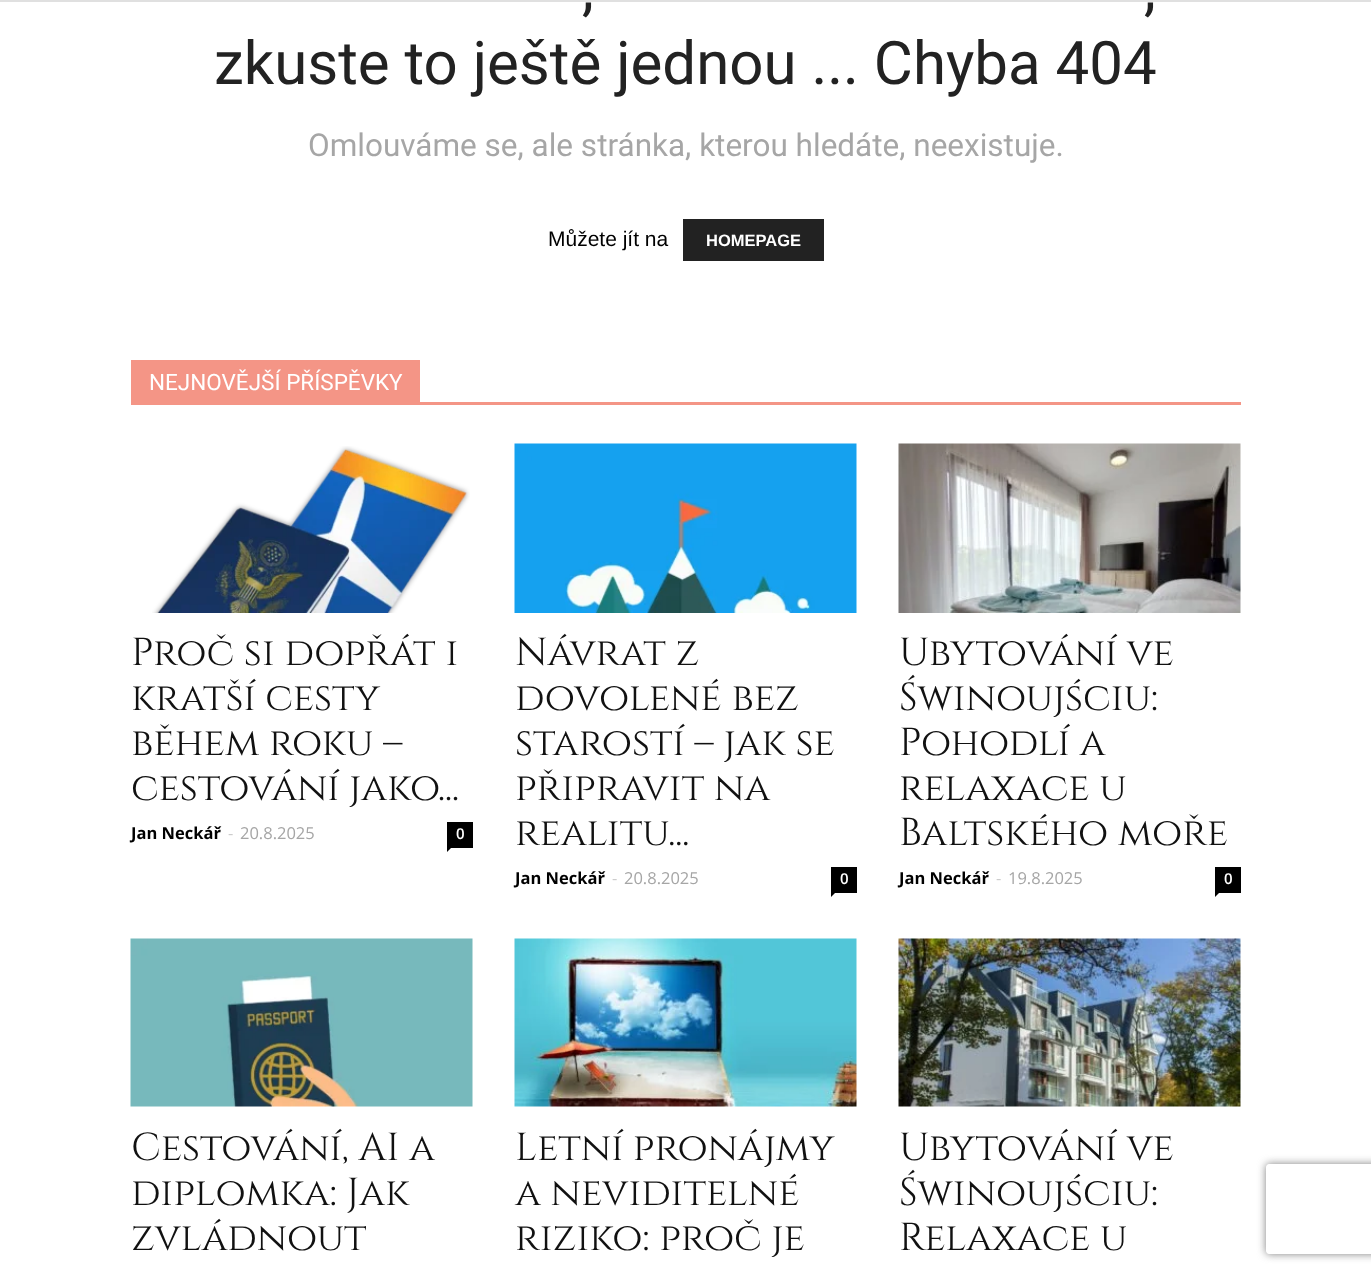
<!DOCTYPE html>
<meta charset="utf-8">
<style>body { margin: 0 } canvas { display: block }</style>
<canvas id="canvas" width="1371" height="1275"></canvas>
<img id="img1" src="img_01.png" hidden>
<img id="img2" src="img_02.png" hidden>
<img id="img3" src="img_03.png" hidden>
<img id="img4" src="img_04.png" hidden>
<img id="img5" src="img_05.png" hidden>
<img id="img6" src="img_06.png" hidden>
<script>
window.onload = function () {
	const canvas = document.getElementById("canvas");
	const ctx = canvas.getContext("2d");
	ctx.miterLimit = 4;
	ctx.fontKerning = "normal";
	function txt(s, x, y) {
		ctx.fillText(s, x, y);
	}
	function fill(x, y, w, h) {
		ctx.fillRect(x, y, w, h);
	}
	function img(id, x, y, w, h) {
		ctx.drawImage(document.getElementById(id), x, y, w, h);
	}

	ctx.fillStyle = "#FFFFFF";
	fill(0, 0, 1371, 1275);
	ctx.fillStyle = "#E0E0E0";
	fill(0, 0, 1371, 2);
	ctx.fillStyle = "#222222";
	fill(683, 219, 141, 42);
	ctx.fillStyle = "#F49586";
	fill(131, 402, 1110, 3);
	fill(131, 360, 289, 42);
	img("img1", 152, 446, 318, 167);
	ctx.fillStyle = "#000000";
	fill(447, 822, 26, 26);
	ctx.beginPath();
	ctx.moveTo(447, 847.5);
	ctx.lineTo(451.5, 847.5);
	ctx.lineTo(447, 852);
	ctx.closePath();
	ctx.fill();
	img("img2", 514, 443, 343, 170);
	fill(831, 867, 26, 26);
	ctx.beginPath();
	ctx.moveTo(831, 892.5);
	ctx.lineTo(835.5, 892.5);
	ctx.lineTo(831, 897);
	ctx.closePath();
	ctx.fill();
	img("img3", 898, 443, 343, 170);
	fill(1215, 867, 26, 26);
	ctx.beginPath();
	ctx.moveTo(1215, 892.5);
	ctx.lineTo(1219.5, 892.5);
	ctx.lineTo(1215, 897);
	ctx.closePath();
	ctx.fill();
	img("img4", 130, 938, 343, 169);
	img("img5", 514, 938, 343, 169);
	img("img6", 898, 938, 343, 169);
	ctx.save();
	ctx.beginPath();
	ctx.moveTo(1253, 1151);
	ctx.lineTo(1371, 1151);
	ctx.lineTo(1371, 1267);
	ctx.lineTo(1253, 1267);
	ctx.closePath();
	ctx.moveTo(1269, 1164);
	ctx.lineTo(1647, 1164);
	ctx.bezierCurveTo(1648.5, 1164, 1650, 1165.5, 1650, 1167);
	ctx.lineTo(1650, 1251);
	ctx.bezierCurveTo(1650, 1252.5, 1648.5, 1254, 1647, 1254);
	ctx.lineTo(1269, 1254);
	ctx.bezierCurveTo(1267.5, 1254, 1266, 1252.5, 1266, 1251);
	ctx.lineTo(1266, 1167);
	ctx.bezierCurveTo(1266, 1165.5, 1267.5, 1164, 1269, 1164);
	ctx.closePath();
	ctx.clip("evenodd");
	ctx.fillStyle = "#808080";
	ctx.filter = "blur(4px)";
	ctx.beginPath();
	ctx.roundRect(1266, 1164, 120, 90, 3);
	ctx.fill();
	ctx.filter = "none";
	ctx.restore();
	ctx.font = "60px Roboto";
	ctx.fillStyle = "#222222";
	txt(",", 582, 9);
	txt(",", 1144, 9);
	txt("zkuste to ještě jednou ... Chyba 404", 214, 84);
	ctx.font = "31.5px Roboto";
	ctx.fillStyle = "#A6A6A6";
	txt("Omlouváme se, ale stránka, kterou hledáte, neexistuje.", 308, 156);
	ctx.font = "21px Liberation Sans";
	ctx.fillStyle = "#000000";
	txt("Můžete jít na", 548, 246);
	ctx.font = "bold 16.5px Liberation Sans";
	ctx.fillStyle = "#FFFFFF";
	txt("HOMEPAGE", 706, 246);
	ctx.font = "22.5px Roboto";
	txt("NEJNOVĚJŠÍ PŘÍSPĚVKY", 149, 390);
	ctx.font = "39px Cinzel";
	ctx.fillStyle = "#111111";
	txt("Proč si dopřát i", 131, 665);
	txt("kratší cesty", 131, 710);
	txt("během roku –", 131, 755);
	txt("cestování jako...", 131, 800);
	ctx.font = "bold 16.5px Open Sans";
	ctx.fillStyle = "#000000";
	txt("Jan Neckář", 131, 839);
	ctx.font = "16.5px Open Sans";
	ctx.fillStyle = "#CCCCCC";
	txt("-", 228, 839);
	ctx.fillStyle = "#A6A6A6";
	txt("20.8.2025", 240, 839);
	ctx.font = "600 15px Open Sans";
	ctx.fillStyle = "#FFFFFF";
	txt("0", 456, 839);
	ctx.font = "39px Cinzel";
	ctx.fillStyle = "#111111";
	txt("Návrat z", 515, 665);
	txt("dovolené bez", 515, 710);
	txt("starostí – jak se", 515, 755);
	txt("připravit na", 515, 800);
	txt("realitu...", 515, 845);
	ctx.font = "bold 16.5px Open Sans";
	ctx.fillStyle = "#000000";
	txt("Jan Neckář", 515, 884);
	ctx.font = "16.5px Open Sans";
	ctx.fillStyle = "#CCCCCC";
	txt("-", 612, 884);
	ctx.fillStyle = "#A6A6A6";
	txt("20.8.2025", 624, 884);
	ctx.font = "600 15px Open Sans";
	ctx.fillStyle = "#FFFFFF";
	txt("0", 840, 884);
	ctx.font = "39px Cinzel";
	ctx.fillStyle = "#111111";
	txt("Ubytování ve", 899, 665);
	txt("Świnoujściu:", 899, 710);
	txt("Pohodlí a", 899, 755);
	txt("relaxace u", 899, 800);
	txt("Baltského moře", 899, 845);
	ctx.font = "bold 16.5px Open Sans";
	ctx.fillStyle = "#000000";
	txt("Jan Neckář", 899, 884);
	ctx.font = "16.5px Open Sans";
	ctx.fillStyle = "#CCCCCC";
	txt("-", 996, 884);
	ctx.fillStyle = "#A6A6A6";
	txt("19.8.2025", 1008, 884);
	ctx.font = "600 15px Open Sans";
	ctx.fillStyle = "#FFFFFF";
	txt("0", 1224, 884);
	ctx.font = "39px Cinzel";
	ctx.fillStyle = "#111111";
	txt("Cestování, AI a", 131, 1160);
	txt("diplomka: Jak", 131, 1205);
	txt("zvládnout", 131, 1250);
	txt("Letní pronájmy", 515, 1160);
	txt("a neviditelné", 515, 1205);
	txt("riziko: proč je", 515, 1250);
	txt("Ubytování ve", 899, 1160);
	txt("Świnoujściu:", 899, 1205);
	txt("Relaxace u", 899, 1250);
};
</script>
